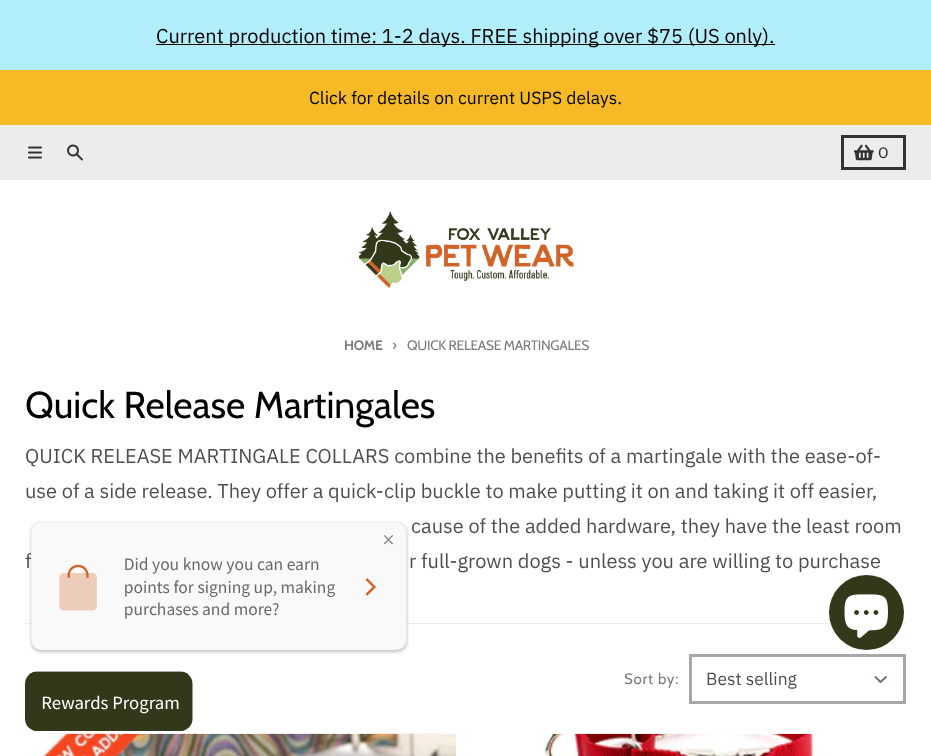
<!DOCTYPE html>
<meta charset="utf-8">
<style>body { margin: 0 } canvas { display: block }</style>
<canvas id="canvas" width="931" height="756"></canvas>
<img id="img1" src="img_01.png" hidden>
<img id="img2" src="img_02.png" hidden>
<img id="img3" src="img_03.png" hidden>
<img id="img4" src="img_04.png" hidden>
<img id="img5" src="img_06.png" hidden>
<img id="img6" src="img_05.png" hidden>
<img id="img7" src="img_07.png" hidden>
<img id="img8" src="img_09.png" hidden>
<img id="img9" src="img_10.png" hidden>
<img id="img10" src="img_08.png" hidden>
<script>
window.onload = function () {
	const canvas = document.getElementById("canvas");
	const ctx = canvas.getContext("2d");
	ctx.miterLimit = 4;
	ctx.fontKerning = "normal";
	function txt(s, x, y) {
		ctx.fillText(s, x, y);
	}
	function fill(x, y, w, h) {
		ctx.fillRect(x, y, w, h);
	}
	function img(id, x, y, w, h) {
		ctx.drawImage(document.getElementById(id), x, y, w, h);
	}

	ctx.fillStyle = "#ECECEC";
	fill(0, 0, 931, 756);
	ctx.fillStyle = "#B2EDFA";
	fill(0, 0, 931, 70);
	ctx.fillStyle = "#000000";
	fill(156, 44, 619, 1);
	ctx.fillStyle = "#F5BA25";
	fill(0, 70, 931, 55);
	img("img1", 28, 146, 14, 13);
	img("img2", 67, 144, 16, 17);
	ctx.strokeStyle = "#333333";
	ctx.lineWidth = 3;
	ctx.strokeRect(842.5, 136.5, 62, 32);
	img("img3", 854, 144, 20, 17);
	ctx.fillStyle = "#FFFFFF";
	fill(0, 180, 931, 576);
	img("img4", 358, 211, 216, 77);
	ctx.fillStyle = "#EDEDED";
	fill(25, 623, 881, 1);
	ctx.beginPath();
	ctx.moveTo(875.5, 677);
	ctx.lineTo(880.5, 682);
	ctx.lineTo(886, 677);
	ctx.strokeStyle = "#6B7280";
	ctx.lineWidth = 2;
	ctx.lineCap = "round";
	ctx.lineJoin = "round";
	ctx.stroke();
	ctx.strokeStyle = "#A7A7A7";
	ctx.lineWidth = 3;
	ctx.lineJoin = "miter";
	ctx.strokeRect(690.5, 655.5, 214, 47);
	img("img5", 42, 733, 408, 1);
	img("img6", 37, 733, 419, 23);
	img("img7", 544, 733, 275, 23);
	ctx.fillStyle = "#32391B";
	ctx.beginPath();
	ctx.arc(866.5, 612.5, 37.5, 0, Math.PI * 2);
	ctx.fill();
	img("img8", 844, 594, 44, 44);
	img("img9", 25, 671, 168, 60);
	ctx.font = "20px IBM Plex Sans";
	ctx.fillStyle = "#000000";
	txt("Current production time: 1-2 days. FREE shipping over $75 (US only).", 156, 43);
	ctx.font = "17.5px IBM Plex Sans";
	txt("Click for details on current USPS delays.", 309, 104);
	ctx.font = "15px Cabin";
	ctx.fillStyle = "#333333";
	txt("0", 878, 158);
	ctx.letterSpacing = "-0.3px";
	ctx.font = "bold 13.75px Cabin";
	ctx.fillStyle = "#7B7B7B";
	txt("HOME", 344, 350);
	ctx.font = "15px Cabin";
	txt("›", 392, 350);
	ctx.font = "13.75px Cabin";
	txt("QUICK RELEASE MARTINGALES", 407, 350);
	ctx.letterSpacing = "0px";
	ctx.font = "37.5px Cabin";
	ctx.fillStyle = "#000000";
	txt("Quick Release Martingales", 25, 418);
	ctx.font = "20px IBM Plex Sans";
	ctx.fillStyle = "#4F4F4F";
	txt("QUICK RELEASE MARTINGALE COLLARS combine the benefits of a martingale with the ease-of-", 25, 463);
	txt("use of a side release. They offer a quick-clip buckle to make putting it on and taking it off easier,", 25, 498);
	txt("cause of the added hardware, they have the least room", 411, 533);
	txt("f", 25, 568);
	txt("r full-grown dogs - unless you are willing to purchase", 409, 568);
	ctx.letterSpacing = "0.75px";
	ctx.font = "15px Cabin";
	ctx.fillStyle = "#7B7B7B";
	txt("Sort by:", 624, 684);
	ctx.letterSpacing = "0px";
	ctx.font = "17.5px IBM Plex Sans";
	ctx.fillStyle = "#4F4F4F";
	txt("Best selling", 706, 685);
	img("img10", 29, 521, 380, 133);
};
</script>
